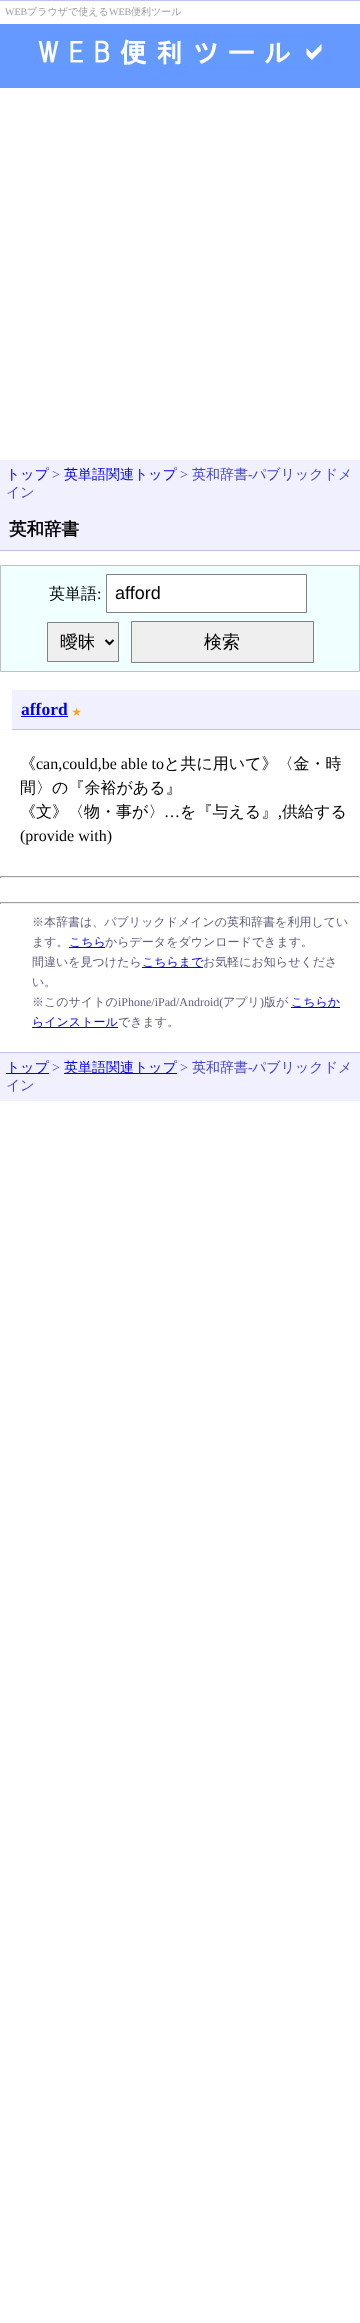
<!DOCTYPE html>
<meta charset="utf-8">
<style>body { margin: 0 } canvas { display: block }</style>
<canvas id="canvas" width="360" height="2323"></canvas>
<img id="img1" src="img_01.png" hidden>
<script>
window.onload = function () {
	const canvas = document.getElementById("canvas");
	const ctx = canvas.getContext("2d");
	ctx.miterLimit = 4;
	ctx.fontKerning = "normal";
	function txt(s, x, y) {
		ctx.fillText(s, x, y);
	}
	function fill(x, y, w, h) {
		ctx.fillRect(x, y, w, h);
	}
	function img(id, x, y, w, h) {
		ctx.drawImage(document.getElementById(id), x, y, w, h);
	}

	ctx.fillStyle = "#FFFFFF";
	fill(0, 0, 360, 2323);
	ctx.fillStyle = "#C0C0FF";
	fill(0, 0, 360, 1);
	ctx.fillStyle = "#6699FF";
	fill(0, 24, 360, 64);
	img("img1", 38, 39, 284, 26);
	ctx.fillStyle = "#F0F0FF";
	fill(0, 460, 360, 90);
	ctx.fillStyle = "#C0C0FF";
	fill(0, 550, 360, 1);
	ctx.fillStyle = "#F0FFFF";
	ctx.beginPath();
	ctx.rect(0.5, 565.5, 359, 106);
	ctx.fill();
	ctx.strokeStyle = "#C0C0C0";
	ctx.stroke();
	ctx.fillStyle = "#FFFFFF";
	ctx.beginPath();
	ctx.rect(106.5, 574.5, 200, 38);
	ctx.fill();
	ctx.strokeStyle = "#808080";
	ctx.stroke();
	ctx.fillStyle = "#EFEFEF";
	ctx.beginPath();
	ctx.rect(47.5, 622.5, 71, 39);
	ctx.fill();
	ctx.stroke();
	ctx.beginPath();
	ctx.moveTo(105.5, 640);
	ctx.lineTo(109.5, 644);
	ctx.lineTo(113.5, 640);
	ctx.strokeStyle = "#000000";
	ctx.lineWidth = 2;
	ctx.stroke();
	ctx.beginPath();
	ctx.rect(131.5, 621.5, 182, 41);
	ctx.fill();
	ctx.strokeStyle = "#808080";
	ctx.lineWidth = 1;
	ctx.stroke();
	ctx.fillStyle = "#F0F0FF";
	fill(12, 690, 348, 39);
	ctx.fillStyle = "#C0C0FF";
	fill(12, 729, 348, 1);
	ctx.fillStyle = "#0000EE";
	fill(21, 716, 47, 1);
	ctx.fillStyle = "#9F9F9F";
	fill(0, 876, 360, 1);
	ctx.fillStyle = "#EEEEEE";
	fill(359, 876, 1, 2);
	fill(0, 877, 360, 1);
	ctx.fillStyle = "#9F9F9F";
	fill(0, 876, 1, 2);
	fill(0, 902, 360, 1);
	ctx.fillStyle = "#EEEEEE";
	fill(359, 902, 1, 2);
	fill(0, 903, 360, 1);
	ctx.fillStyle = "#9F9F9F";
	fill(0, 902, 1, 2);
	ctx.fillStyle = "#0000EE";
	fill(69, 947, 36, 1);
	fill(142, 967, 61, 1);
	fill(291, 1007, 49, 1);
	fill(32, 1027, 86, 1);
	ctx.fillStyle = "#C0C0FF";
	fill(0, 1052, 360, 1);
	ctx.fillStyle = "#F0F0FF";
	fill(0, 1053, 360, 48);
	ctx.fillStyle = "#0000EE";
	fill(6, 1073, 43, 1);
	fill(64, 1073, 113, 1);
	ctx.font = "10px Liberation Serif";
	ctx.fillStyle = "#A0A0A0";
	txt("WEB", 5, 15);
	ctx.font = "500 10px WenQuanYi Zen Hei";
	txt("ブラウザで使える", 27, 15);
	ctx.font = "10px Liberation Serif";
	txt("WEB", 109, 15);
	ctx.font = "500 10px WenQuanYi Zen Hei";
	txt("便利ツール", 131, 15);
	ctx.font = "500 14px WenQuanYi Zen Hei";
	ctx.fillStyle = "#0000EE";
	txt("トップ", 6, 479);
	ctx.font = "14px Liberation Serif";
	ctx.fillStyle = "#4444CC";
	txt(">", 52, 479);
	ctx.font = "500 14px WenQuanYi Zen Hei";
	ctx.fillStyle = "#0000EE";
	txt("英単語関連トップ", 64, 479);
	ctx.font = "14px Liberation Serif";
	ctx.fillStyle = "#4444CC";
	txt(">", 180, 479);
	ctx.font = "500 14px WenQuanYi Zen Hei";
	txt("英和辞書", 192, 479);
	ctx.font = "14px Liberation Serif";
	txt("-", 248, 479);
	ctx.font = "500 14px WenQuanYi Zen Hei";
	txt("パブリックドメ", 252, 479);
	txt("イン", 6, 497);
	ctx.font = "bold 17.5px WenQuanYi Zen Hei";
	ctx.fillStyle = "#000000";
	txt("英和辞書", 9, 535);
	ctx.font = "500 16px WenQuanYi Zen Hei";
	txt("英単語", 49, 599);
	ctx.font = "16px Liberation Serif";
	txt(":", 97, 599);
	ctx.font = "18px Liberation Sans";
	txt("afford", 115, 599);
	ctx.save();
	ctx.beginPath();
	ctx.rect(60, 631, 34, 22);
	ctx.clip();
	ctx.font = "500 18px WenQuanYi Zen Hei";
	txt("曖昧", 60, 648);
	ctx.restore();
	ctx.font = "500 18px WenQuanYi Zen Hei";
	txt("検索", 204, 648);
	ctx.font = "bold 17.5px Liberation Serif";
	ctx.fillStyle = "#0000EE";
	txt("afford", 21, 715);
	ctx.font = "bold 9px WenQuanYi Zen Hei";
	ctx.fillStyle = "#FFA500";
	txt("★", 72, 715);
	ctx.font = "500 16px WenQuanYi Zen Hei";
	ctx.fillStyle = "#000000";
	txt("《", 20, 769);
	ctx.font = "16px Liberation Serif";
	txt("can,could,be able to", 36, 769);
	ctx.font = "500 16px WenQuanYi Zen Hei";
	txt("と共に用いて》〈金・時", 164, 769);
	txt("間〉の『余裕がある』", 20, 793);
	txt("《文》〈物・事が〉", 20, 817);
	ctx.font = "16px Liberation Serif";
	txt("…", 164, 817);
	ctx.font = "500 16px WenQuanYi Zen Hei";
	txt("を『与える』", 180, 817);
	ctx.font = "16px Liberation Serif";
	txt(",", 278, 817);
	ctx.font = "500 16px WenQuanYi Zen Hei";
	txt("供給する", 282, 817);
	ctx.font = "16px Liberation Serif";
	txt("(provide with)", 20, 841);
	ctx.font = "500 12px WenQuanYi Zen Hei";
	ctx.fillStyle = "#606080";
	txt("※本辞書は、パブリックドメインの英和辞書を利用してい", 32, 926);
	txt("ます。", 32, 946);
	ctx.fillStyle = "#0000EE";
	txt("こちら", 69, 946);
	ctx.fillStyle = "#606080";
	txt("からデータをダウンロードできます。", 105, 946);
	txt("間違いを見つけたら", 32, 966);
	ctx.fillStyle = "#0000EE";
	txt("こちらまで", 142, 966);
	ctx.fillStyle = "#606080";
	txt("お気軽にお知らせくださ", 203, 966);
	txt("い。", 32, 986);
	txt("※このサイトの", 32, 1006);
	ctx.font = "12px Liberation Serif";
	txt("iPhone/iPad/Android(", 118, 1006);
	ctx.font = "500 12px WenQuanYi Zen Hei";
	txt("アプリ", 223, 1006);
	ctx.font = "12px Liberation Serif";
	txt(")", 260, 1006);
	ctx.font = "500 12px WenQuanYi Zen Hei";
	txt("版が", 264, 1006);
	ctx.fillStyle = "#0000EE";
	txt("こちらか", 291, 1006);
	txt("らインストール", 32, 1026);
	ctx.fillStyle = "#606080";
	txt("できます。", 118, 1026);
	ctx.font = "500 14px WenQuanYi Zen Hei";
	ctx.fillStyle = "#0000EE";
	txt("トップ", 6, 1072);
	ctx.font = "14px Liberation Serif";
	ctx.fillStyle = "#4444CC";
	txt(">", 52, 1072);
	ctx.font = "500 14px WenQuanYi Zen Hei";
	ctx.fillStyle = "#0000EE";
	txt("英単語関連トップ", 64, 1072);
	ctx.font = "14px Liberation Serif";
	ctx.fillStyle = "#4444CC";
	txt(">", 180, 1072);
	ctx.font = "500 14px WenQuanYi Zen Hei";
	txt("英和辞書", 192, 1072);
	ctx.font = "14px Liberation Serif";
	txt("-", 248, 1072);
	ctx.font = "500 14px WenQuanYi Zen Hei";
	txt("パブリックドメ", 252, 1072);
	txt("イン", 6, 1090);
};
</script>
